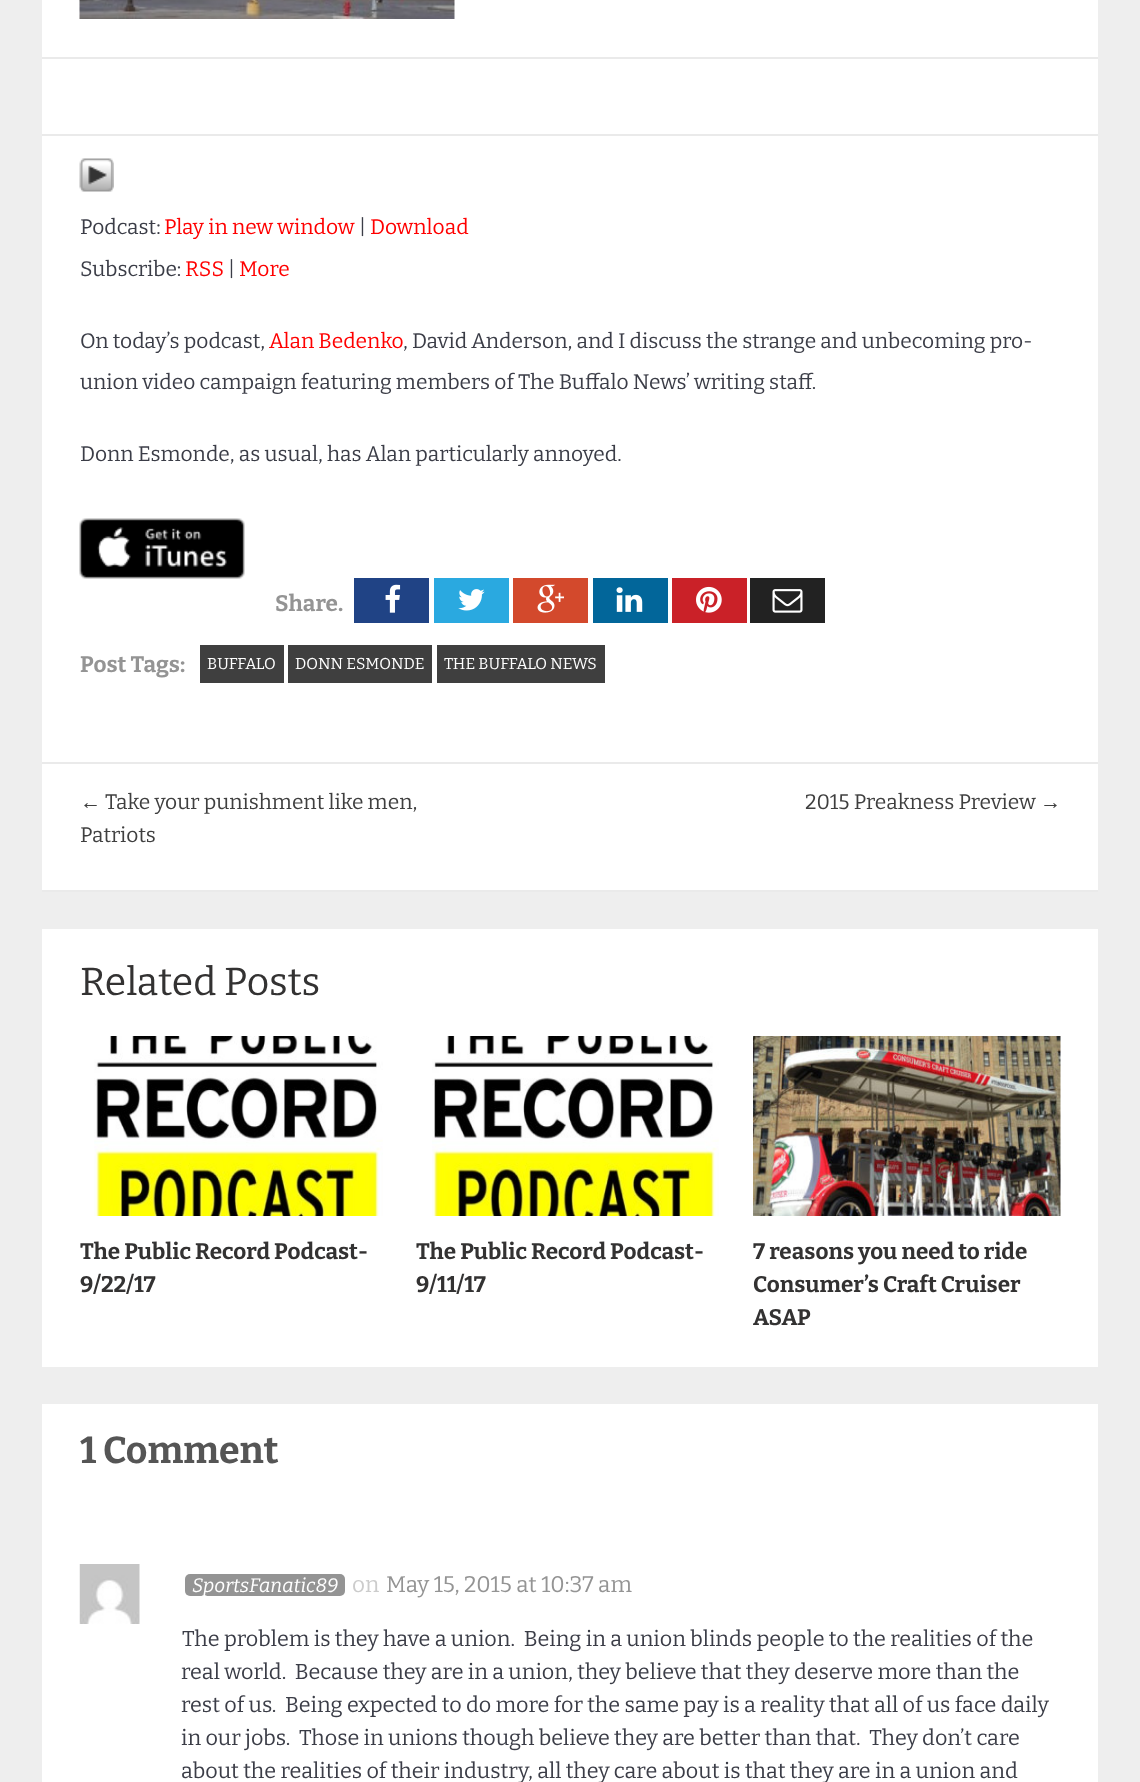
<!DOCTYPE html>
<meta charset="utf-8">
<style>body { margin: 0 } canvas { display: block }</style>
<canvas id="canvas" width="1140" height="1782"></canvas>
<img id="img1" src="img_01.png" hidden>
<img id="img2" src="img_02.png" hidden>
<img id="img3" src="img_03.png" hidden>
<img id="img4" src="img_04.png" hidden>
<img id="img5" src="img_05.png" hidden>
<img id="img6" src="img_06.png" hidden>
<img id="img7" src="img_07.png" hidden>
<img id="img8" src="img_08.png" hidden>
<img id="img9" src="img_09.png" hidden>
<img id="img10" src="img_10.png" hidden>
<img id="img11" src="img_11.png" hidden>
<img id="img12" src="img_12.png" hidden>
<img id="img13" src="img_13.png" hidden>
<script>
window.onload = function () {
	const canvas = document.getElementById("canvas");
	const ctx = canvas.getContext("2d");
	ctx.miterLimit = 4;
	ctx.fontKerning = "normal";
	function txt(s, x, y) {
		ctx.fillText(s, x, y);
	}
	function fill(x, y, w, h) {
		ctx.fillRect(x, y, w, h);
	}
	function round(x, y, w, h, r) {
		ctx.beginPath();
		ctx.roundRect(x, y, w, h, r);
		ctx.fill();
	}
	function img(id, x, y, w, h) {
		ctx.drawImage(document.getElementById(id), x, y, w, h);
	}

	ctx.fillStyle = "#EEEEEE";
	fill(0, 0, 1140, 1782);
	ctx.fillStyle = "#FFFFFF";
	fill(42, 0, 1056, 890);
	ctx.fillStyle = "#EAEAEA";
	fill(42, 890, 1056, 2);
	fill(42, 57, 1056, 2);
	img("img1", 79, 0, 376, 19);
	fill(42, 134, 1056, 2);
	img("img2", 79, 158, 35, 34);
	img("img3", 79, 518, 166, 61);
	ctx.fillStyle = "#204385";
	fill(354, 578, 75, 45);
	img("img4", 385, 584, 16, 29);
	ctx.fillStyle = "#2AA9E0";
	fill(434, 578, 75, 45);
	img("img5", 458, 589, 27, 22);
	ctx.fillStyle = "#D3492C";
	fill(513, 578, 75, 45);
	img("img6", 537, 584, 27, 29);
	ctx.fillStyle = "#02669A";
	fill(593, 578, 75, 45);
	img("img7", 616, 587, 27, 25);
	ctx.fillStyle = "#CA2128";
	fill(672, 578, 75, 45);
	img("img8", 696, 586, 26, 27);
	ctx.fillStyle = "#222222";
	fill(750, 578, 75, 45);
	img("img9", 772, 589, 31, 24);
	ctx.fillStyle = "#3F3F3F";
	fill(200, 645, 84, 38);
	fill(288, 645, 144, 38);
	fill(437, 645, 168, 38);
	ctx.fillStyle = "#EAEAEA";
	fill(42, 762, 1056, 2);
	ctx.fillStyle = "#FFFFFF";
	fill(42, 929, 1056, 438);
	img("img10", 94, 1036, 289, 180);
	img("img11", 432, 1036, 287, 180);
	img("img12", 753, 1036, 308, 180);
	fill(42, 1404, 1056, 378);
	img("img13", 79, 1564, 61, 60);
	ctx.fillStyle = "#949494";
	round(185, 1574, 160, 22, 5);
	ctx.font = "21px Bitter";
	ctx.fillStyle = "#3B3D47";
	txt("Podcast:", 80, 234);
	ctx.fillStyle = "#FF0000";
	txt("Play in new window", 164, 234);
	ctx.fillStyle = "#3B3D47";
	txt("|", 359, 234);
	ctx.fillStyle = "#FF0000";
	txt("Download", 370, 234);
	ctx.fillStyle = "#3B3D47";
	txt("Subscribe:", 80, 276);
	ctx.fillStyle = "#FF0000";
	txt("RSS", 185, 276);
	ctx.fillStyle = "#3B3D47";
	txt("|", 228, 276);
	ctx.fillStyle = "#FF0000";
	txt("More", 239, 276);
	ctx.fillStyle = "#3B3D47";
	txt("On today’s podcast,", 80, 348);
	ctx.fillStyle = "#FF0000";
	txt("Alan Bedenko", 269, 348);
	ctx.fillStyle = "#3B3D47";
	txt(", David Anderson, and I discuss the strange and unbecoming pro-", 403, 348);
	txt("union video campaign featuring members of The Buffalo News’ writing staff.", 80, 389);
	txt("Donn Esmonde, as usual, has Alan particularly annoyed.", 80, 461);
	ctx.font = "bold 22.5px Bitter";
	ctx.fillStyle = "#949494";
	txt("Share.", 275, 611);
	txt("Post Tags:", 80, 672);
	ctx.font = "15.75px Bitter";
	ctx.fillStyle = "#FFFFFF";
	txt("BUFFALO", 207, 669);
	txt("DONN ESMONDE", 295, 669);
	txt("THE BUFFALO NEWS", 444, 669);
	ctx.font = "21px Liberation Serif";
	ctx.fillStyle = "#3F3F3F";
	txt("←", 80, 809);
	ctx.font = "21px Bitter";
	txt("Take your punishment like men,", 105, 809);
	txt("Patriots", 80, 842);
	txt("2015 Preakness Preview", 805, 809);
	ctx.font = "21px Liberation Serif";
	txt("→", 1040, 809);
	ctx.font = "39px Bitter";
	ctx.fillStyle = "#333232";
	txt("Related Posts", 80, 995);
	ctx.font = "bold 22.5px Bitter";
	txt("The Public Record Podcast-", 80, 1259);
	txt("9/22/17", 80, 1292);
	txt("The Public Record Podcast-", 416, 1259);
	txt("9/11/17", 416, 1292);
	txt("7 reasons you need to ride", 753, 1259);
	txt("Consumer’s Craft Cruiser", 753, 1292);
	txt("ASAP", 753, 1325);
	ctx.font = "bold 37.5px Bitter";
	ctx.fillStyle = "#555555";
	txt("1 Comment", 80, 1463);
	ctx.font = "italic 100 19.5px Bitter";
	ctx.fillStyle = "#FFFFFF";
	txt("SportsFanatic89", 192, 1592);
	ctx.font = "22.5px Bitter";
	ctx.fillStyle = "#CCCCCC";
	txt("on", 352, 1592);
	ctx.fillStyle = "#949494";
	txt("May 15, 2015 at 10:37 am", 386, 1592);
	ctx.font = "21.6px Bitter";
	ctx.fillStyle = "#3B3D47";
	txt("The problem is they have a union.  Being in a union blinds people to the realities of the", 182, 1646);
	txt("real world.  Because they are in a union, they believe that they deserve more than the", 181, 1679);
	txt("rest of us.  Being expected to do more for the same pay is a reality that all of us face daily", 181, 1712);
	txt("in our jobs.  Those in unions though believe they are better than that.  They don’t care", 181, 1745);
	txt("about the realities of their industry, all they care about is that they are in a union and", 181, 1778);
};
</script>
